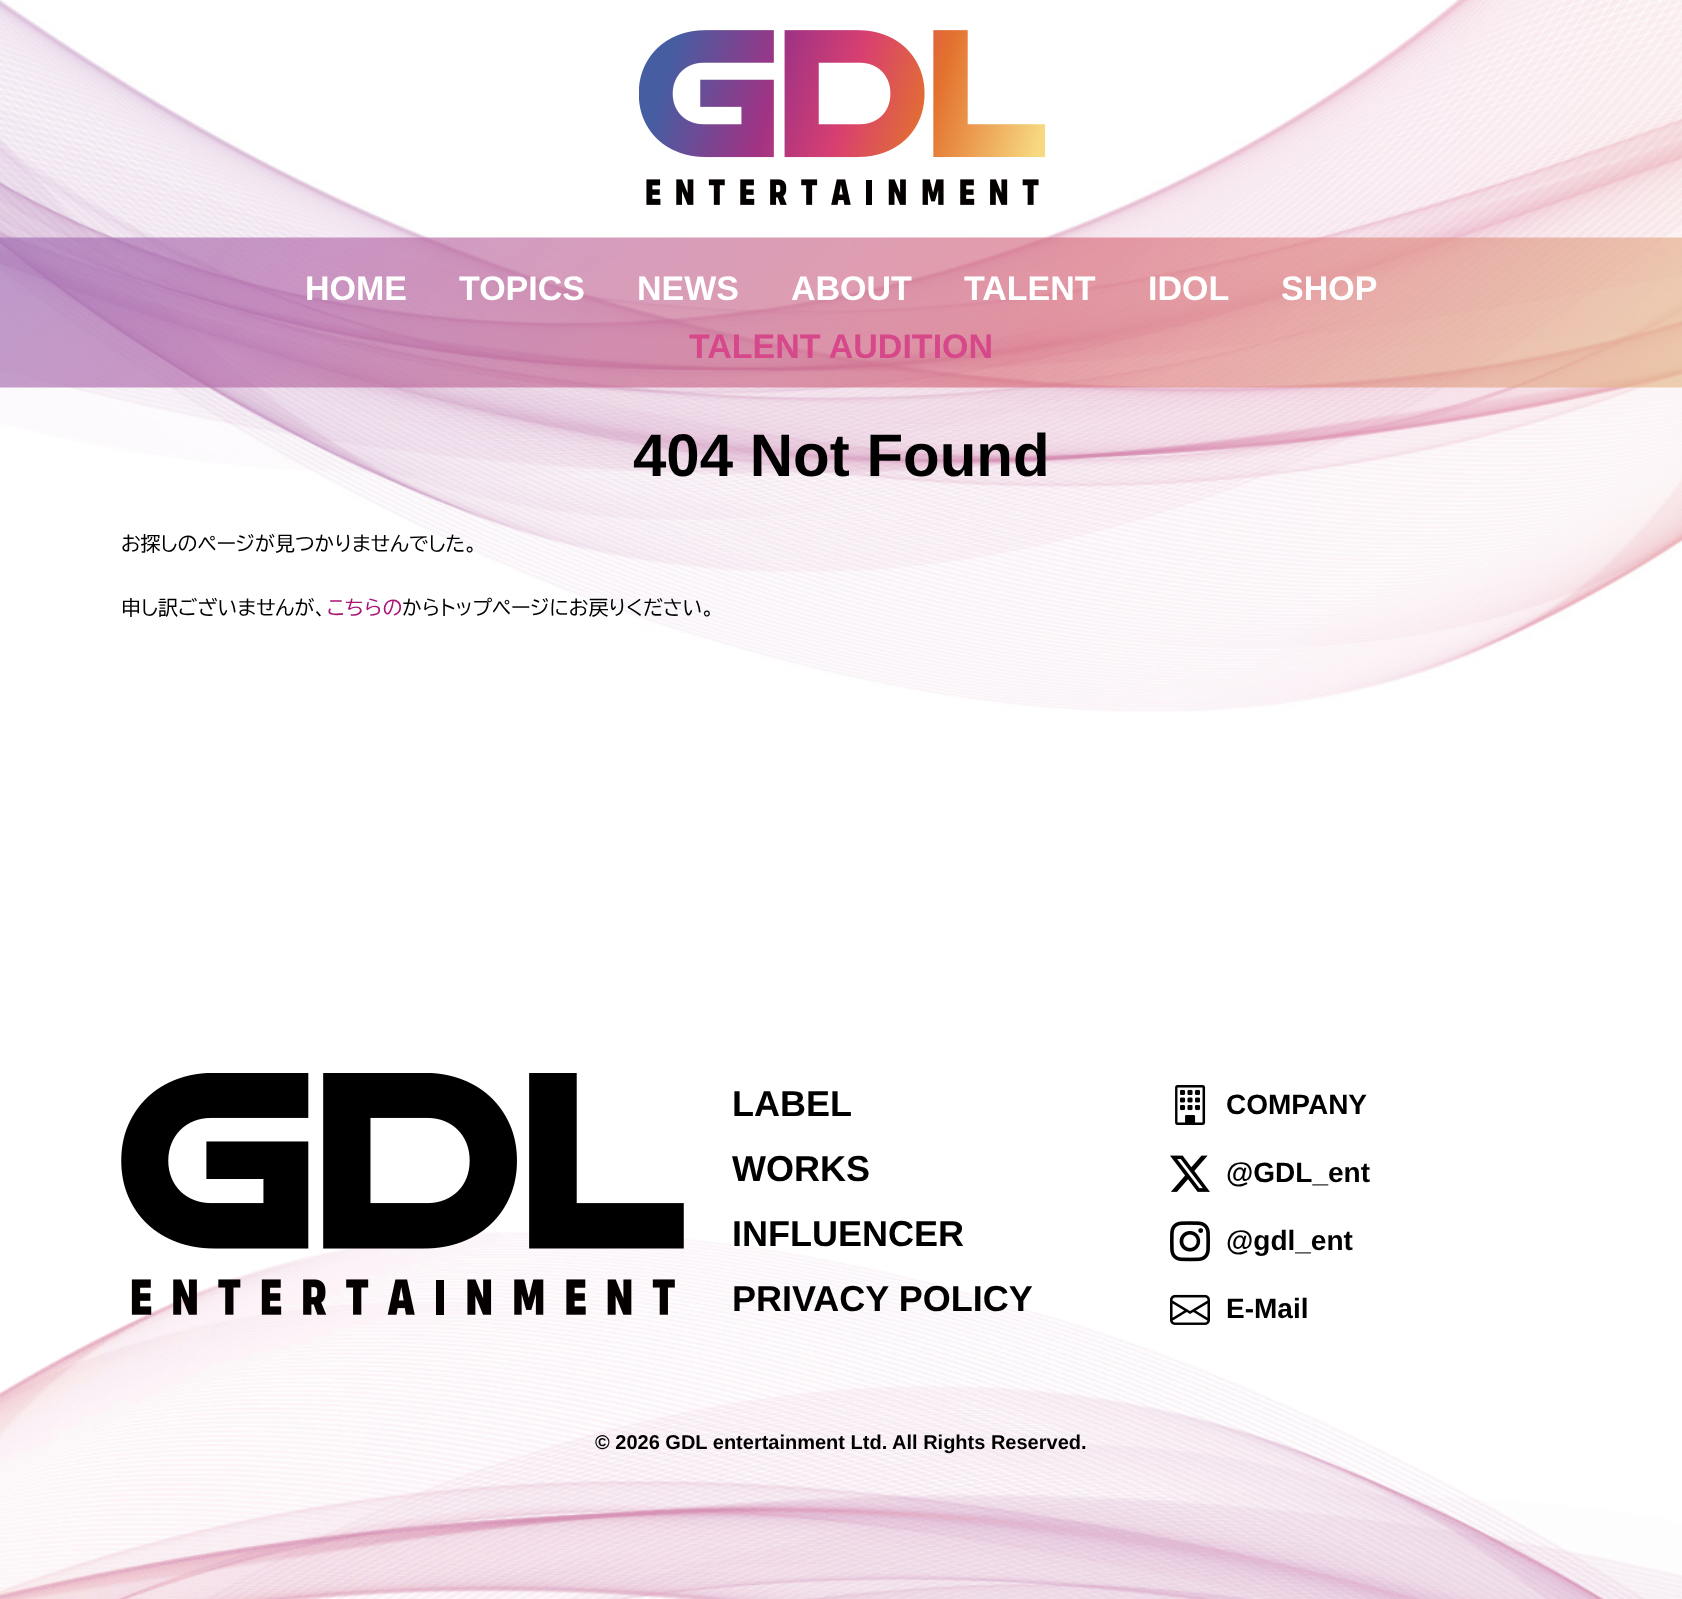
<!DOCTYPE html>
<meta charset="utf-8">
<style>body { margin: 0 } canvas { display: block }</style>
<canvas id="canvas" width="1682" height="1599"></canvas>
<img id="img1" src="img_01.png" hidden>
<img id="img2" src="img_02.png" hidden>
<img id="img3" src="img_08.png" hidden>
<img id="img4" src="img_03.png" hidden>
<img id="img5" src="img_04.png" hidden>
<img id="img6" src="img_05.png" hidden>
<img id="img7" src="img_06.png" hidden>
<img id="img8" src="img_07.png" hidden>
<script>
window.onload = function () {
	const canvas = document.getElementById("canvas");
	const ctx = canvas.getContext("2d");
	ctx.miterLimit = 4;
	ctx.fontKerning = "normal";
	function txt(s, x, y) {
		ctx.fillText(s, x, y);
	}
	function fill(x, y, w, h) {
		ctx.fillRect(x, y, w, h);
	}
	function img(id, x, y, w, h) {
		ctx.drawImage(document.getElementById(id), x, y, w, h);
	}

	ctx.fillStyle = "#FFFFFF";
	fill(0, 0, 1682, 1599);
	img("img1", 0, 0, 1682, 712);
	img("img2", 639, 30, 406, 175);
	img("img3", 0, 1231, 1682, 368);
	img("img4", 121, 1073, 563, 242);
	img("img5", 1175, 1085, 31, 40);
	img("img6", 1170, 1155, 40, 37);
	img("img7", 1170, 1221, 40, 41);
	img("img8", 1170, 1294, 40, 31);
	ctx.font = "bold 34px Liberation Sans";
	txt("HOME", 305, 300);
	txt("TOPICS", 459, 300);
	txt("NEWS", 637, 300);
	txt("ABOUT", 791, 300);
	txt("TALENT", 964, 300);
	txt("IDOL", 1148, 300);
	txt("SHOP", 1281, 300);
	ctx.fillStyle = "#D7488B";
	txt("TALENT AUDITION", 689, 358);
	ctx.font = "bold 60px Liberation Sans";
	ctx.fillStyle = "#000000";
	txt("404 Not Found", 633, 476);
	ctx.font = "20px BIZ UDPGothic";
	txt("お探しのページが見つかりませんでした。", 121, 551);
	txt("申し訳ございませんが、", 121, 615);
	ctx.fillStyle = "#A91374";
	txt("こちらの", 327, 615);
	ctx.fillStyle = "#000000";
	txt("からトップページにお戻りください。", 402, 615);
	ctx.font = "bold 36px Liberation Sans";
	txt("LABEL", 732, 1116);
	txt("WORKS", 732, 1181);
	txt("INFLUENCER", 732, 1246);
	txt("PRIVACY POLICY", 732, 1311);
	ctx.font = "bold 28px Liberation Sans";
	txt("COMPANY", 1226, 1114);
	txt("@GDL_ent", 1226, 1182);
	txt("@gdl_ent", 1226, 1250);
	txt("E-Mail", 1226, 1318);
	ctx.font = "bold 20px Liberation Sans";
	txt("© 2026 GDL entertainment Ltd. All Rights Reserved.", 595, 1449);
};
</script>
